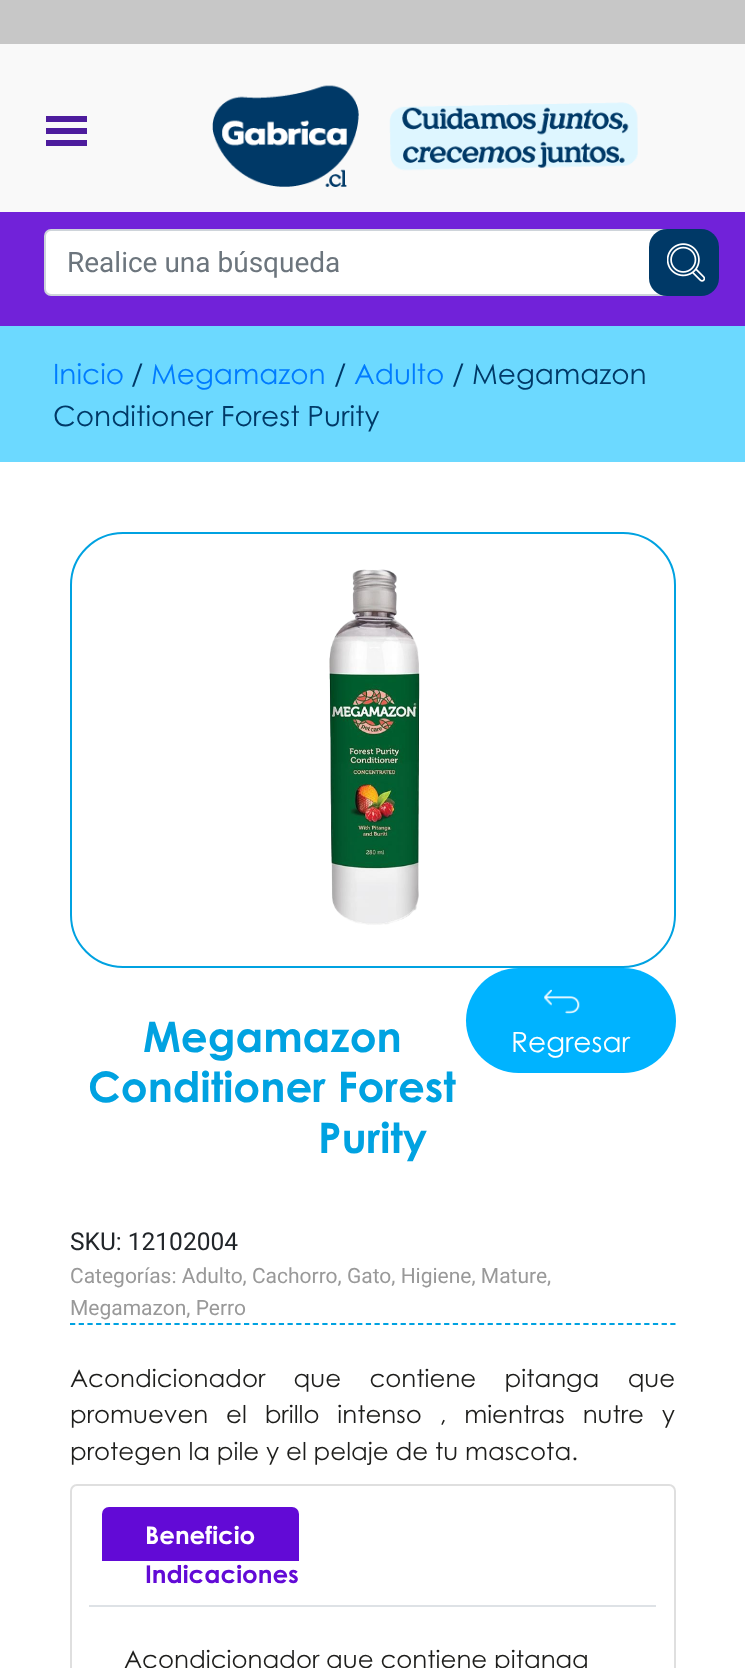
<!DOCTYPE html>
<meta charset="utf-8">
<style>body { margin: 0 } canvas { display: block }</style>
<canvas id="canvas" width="745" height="1668"></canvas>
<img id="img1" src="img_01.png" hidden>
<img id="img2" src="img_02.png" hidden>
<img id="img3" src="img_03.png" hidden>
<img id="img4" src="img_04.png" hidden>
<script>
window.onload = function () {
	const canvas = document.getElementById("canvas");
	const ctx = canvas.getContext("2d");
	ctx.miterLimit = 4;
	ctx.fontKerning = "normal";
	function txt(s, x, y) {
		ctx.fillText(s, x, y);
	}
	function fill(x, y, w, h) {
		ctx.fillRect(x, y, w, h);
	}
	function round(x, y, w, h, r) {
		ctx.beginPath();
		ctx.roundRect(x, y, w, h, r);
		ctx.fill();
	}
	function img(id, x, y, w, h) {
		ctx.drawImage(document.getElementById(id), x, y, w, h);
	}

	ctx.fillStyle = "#FFFFFF";
	fill(0, 0, 745, 1668);
	ctx.fillStyle = "#F9F9F9";
	fill(0, 44, 745, 168);
	ctx.fillStyle = "#C7C7C7";
	fill(0, 0, 745, 44);
	ctx.fillStyle = "#4D1C9D";
	ctx.beginPath();
	ctx.moveTo(46, 146);
	ctx.lineTo(87, 146);
	ctx.lineTo(87, 140);
	ctx.lineTo(46, 140);
	ctx.closePath();
	ctx.moveTo(46, 116);
	ctx.lineTo(46, 122);
	ctx.lineTo(87, 122);
	ctx.lineTo(87, 116);
	ctx.closePath();
	ctx.moveTo(46, 134);
	ctx.lineTo(87, 134);
	ctx.lineTo(87, 128);
	ctx.lineTo(46, 128);
	ctx.closePath();
	ctx.fill();
	img("img1", 212, 85, 426, 102);
	ctx.fillStyle = "#7122D9";
	fill(0, 212, 745, 114);
	ctx.fillStyle = "#FFFFFF";
	ctx.beginPath();
	ctx.roundRect(45, 230, 656, 65, 6);
	ctx.fill();
	ctx.strokeStyle = "#CED4DA";
	ctx.lineWidth = 2;
	ctx.stroke();
	ctx.fillStyle = "#003967";
	round(649, 229, 70, 67, 18);
	img("img2", 667, 243, 38, 39);
	ctx.fillStyle = "#6CD9FF";
	fill(0, 326, 745, 136);
	ctx.beginPath();
	ctx.roundRect(71, 533, 604, 434, 52);
	ctx.strokeStyle = "#00A2E1";
	ctx.stroke();
	img("img3", 329, 569, 91, 356);
	ctx.fillStyle = "#00B3FF";
	round(466, 968, 210, 105, 52.5);
	img("img4", 544, 989, 36, 25);
	ctx.beginPath();
	ctx.moveTo(70, 1324);
	ctx.lineTo(675.5, 1324);
	ctx.lineWidth = 1.8;
	ctx.setLineDash([5.25, 3.45]);
	ctx.stroke();
	ctx.beginPath();
	ctx.roundRect(71, 1485, 604, 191, 6);
	ctx.strokeStyle = "#DFDFDF";
	ctx.lineWidth = 2;
	ctx.setLineDash([]);
	ctx.stroke();
	ctx.fillStyle = "#DEE2E6";
	fill(89, 1605, 567, 2);
	ctx.fillStyle = "#620AD6";
	ctx.beginPath();
	ctx.roundRect(102, 1507, 43, 54, [7, 0, 0, 0]);
	ctx.fill();
	ctx.beginPath();
	ctx.roundRect(145, 1507, 154, 54, [0, 7, 0, 0]);
	ctx.fill();
	ctx.font = "28px Roboto";
	ctx.fillStyle = "#6C757D";
	txt("Realice una búsqueda", 67, 272);
	ctx.font = "28px Century Gothic";
	ctx.fillStyle = "#007BFF";
	txt("Inicio", 53, 384);
	ctx.fillStyle = "#003967";
	txt("/", 131, 384);
	ctx.fillStyle = "#007BFF";
	txt("Megamazon", 151, 384);
	ctx.fillStyle = "#003967";
	txt("/", 334, 384);
	ctx.fillStyle = "#007BFF";
	txt("Adulto", 354, 384);
	ctx.fillStyle = "#003967";
	txt("/ Megamazon", 452, 384);
	txt("Conditioner Forest Purity", 53, 426);
	ctx.font = "bold 42px Century Gothic";
	ctx.fillStyle = "#00A2E1";
	txt("Megamazon", 143, 1052);
	txt("Conditioner Forest", 88, 1102);
	txt("Purity", 318, 1153);
	ctx.font = "28px Century Gothic";
	ctx.fillStyle = "#FFFFFF";
	txt("Regresar", 511, 1052);
	ctx.font = "24.5px Roboto";
	ctx.fillStyle = "#212529";
	txt("SKU: 12102004", 70, 1250);
	ctx.font = "21px Roboto";
	ctx.fillStyle = "#999999";
	txt("Categorías: Adulto, Cachorro, Gato, Higiene, Mature,", 70, 1283);
	txt("Megamazon, Perro", 70, 1315);
	ctx.wordSpacing = "21.5px";
	ctx.font = "24.5px Century Gothic";
	ctx.fillStyle = "#1E1E1C";
	txt("Acondicionador que contiene pitanga que", 70, 1387);
	ctx.wordSpacing = "11px";
	txt("promueven el brillo intenso , mientras nutre y", 70, 1423);
	ctx.wordSpacing = "0px";
	txt("protegen la pile y el pelaje de tu mascota.", 70, 1460);
	ctx.font = "bold 24.5px Century Gothic";
	ctx.fillStyle = "#FFFFFF";
	txt("Beneficio", 145, 1544);
	ctx.fillStyle = "#620AD6";
	txt("Indicaciones", 145, 1583);
	ctx.font = "24.5px Century Gothic";
	ctx.fillStyle = "#1E1E1C";
	txt("Acondicionador que contiene pitanga", 124, 1668);
};
</script>
